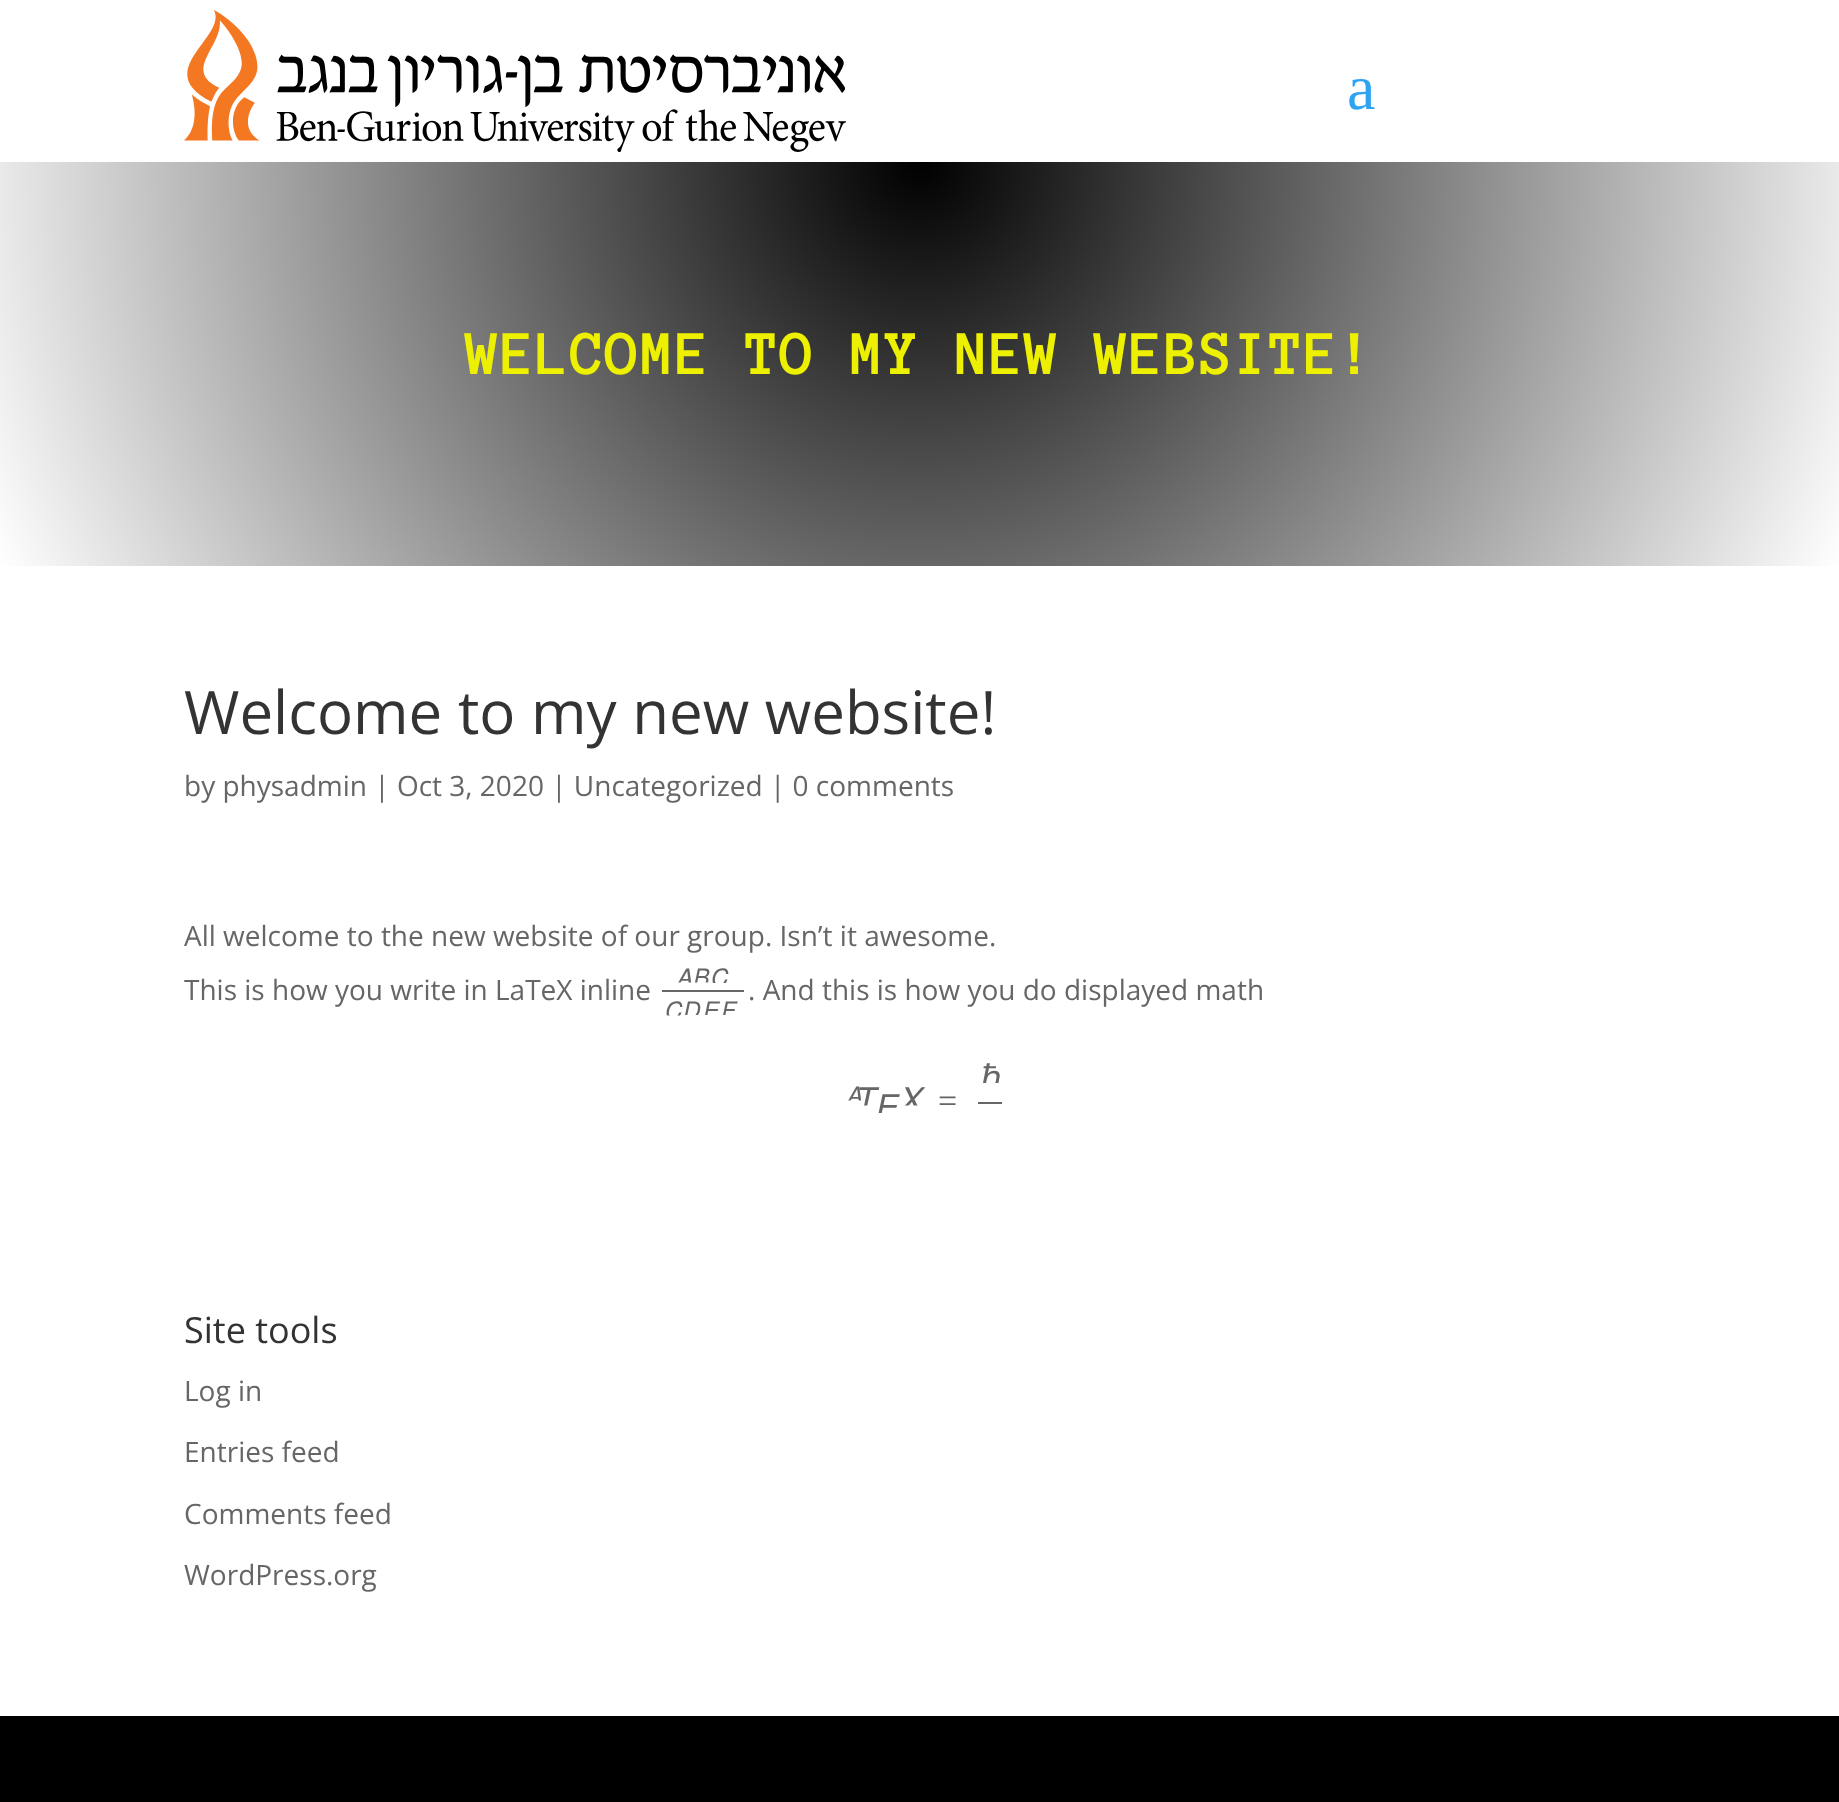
<!DOCTYPE html>
<meta charset="utf-8">
<style>body { margin: 0 } canvas { display: block }</style>
<canvas id="canvas" width="1839" height="1802"></canvas>
<img id="img1" src="img_01.png" hidden>
<script>
window.onload = function () {
	const canvas = document.getElementById("canvas");
	const ctx = canvas.getContext("2d");
	ctx.miterLimit = 4;
	ctx.fontKerning = "normal";
	function txt(s, x, y) {
		ctx.fillText(s, x, y);
	}
	function fill(x, y, w, h) {
		ctx.fillRect(x, y, w, h);
	}
	function img(id, x, y, w, h) {
		ctx.drawImage(document.getElementById(id), x, y, w, h);
	}
	let gradient;

	ctx.fillStyle = "#FFFFFF";
	fill(0, 0, 1839, 1802);
	img("img1", 184, 10, 662, 142);
	gradient = ctx.createRadialGradient(920, 162, 0, 920, 162, 1005);
	gradient.addColorStop(0, "#000000");
	gradient.addColorStop(1, "#FFFFFF");
	ctx.fillStyle = gradient;
	fill(0, 162, 1839, 404);
	ctx.fillStyle = "#666666";
	fill(662, 990, 82, 2);
	fill(978, 1102, 24, 2);
	ctx.fillStyle = "#000000";
	fill(0, 1716, 1839, 86);
	ctx.font = "64px Liberation Serif";
	ctx.fillStyle = "#2EA3F2";
	txt("a", 1347, 109);
	ctx.font = "bold 64px Anonymous Pro";
	ctx.fillStyle = "#EDF000";
	txt("WELCOME TO MY NEW WEBSITE!", 466, 374);
	ctx.font = "60px Open Sans";
	ctx.fillStyle = "#333333";
	txt("Welcome to my new website!", 184, 734);
	ctx.font = "28px Open Sans";
	ctx.fillStyle = "#666666";
	txt("by physadmin | Oct 3, 2020 | Uncategorized | 0 comments", 184, 796);
	txt("All welcome to the new website of our group. Isn’t it awesome.", 184, 946);
	txt("This is how you write in LaTeX inline", 184, 1000);
	ctx.save();
	ctx.beginPath();
	ctx.moveTo(652, 957);
	ctx.lineTo(717.5, 957);
	ctx.lineTo(717.5, 982.5);
	ctx.lineTo(652, 982.5);
	ctx.closePath();
	ctx.clip();
	ctx.font = "24px FreeSans";
	txt("𝐴", 676, 986);
	ctx.restore();
	ctx.save();
	ctx.beginPath();
	ctx.moveTo(669.5, 958);
	ctx.lineTo(736, 958);
	ctx.lineTo(736, 982.5);
	ctx.lineTo(669.5, 982.5);
	ctx.closePath();
	ctx.clip();
	ctx.font = "24px FreeSans";
	txt("𝐵", 694, 986);
	ctx.restore();
	ctx.save();
	ctx.beginPath();
	ctx.moveTo(688, 957.5);
	ctx.lineTo(754, 957.5);
	ctx.lineTo(754, 983);
	ctx.lineTo(688, 983);
	ctx.closePath();
	ctx.clip();
	ctx.font = "24px FreeSans";
	txt("𝐶", 712, 986);
	ctx.restore();
	ctx.save();
	ctx.beginPath();
	ctx.moveTo(641.5, 990);
	ctx.lineTo(708, 990);
	ctx.lineTo(708, 1015.5);
	ctx.lineTo(641.5, 1015.5);
	ctx.closePath();
	ctx.clip();
	ctx.font = "24px FreeSans";
	txt("𝐶", 666, 1019);
	ctx.restore();
	ctx.save();
	ctx.beginPath();
	ctx.moveTo(660, 991);
	ctx.lineTo(728, 991);
	ctx.lineTo(728, 1015);
	ctx.lineTo(660, 1015);
	ctx.closePath();
	ctx.clip();
	ctx.font = "24px FreeSans";
	txt("𝐷", 684, 1019);
	ctx.restore();
	ctx.save();
	ctx.beginPath();
	ctx.moveTo(680, 991);
	ctx.lineTo(746, 991);
	ctx.lineTo(746, 1015);
	ctx.lineTo(680, 1015);
	ctx.closePath();
	ctx.clip();
	ctx.font = "24px FreeSans";
	txt("𝐸", 704, 1019);
	ctx.restore();
	ctx.save();
	ctx.beginPath();
	ctx.moveTo(698, 991);
	ctx.lineTo(764, 991);
	ctx.lineTo(764, 1015);
	ctx.lineTo(698, 1015);
	ctx.closePath();
	ctx.clip();
	ctx.font = "24px FreeSans";
	txt("𝐹", 722, 1019);
	ctx.restore();
	txt(". And this is how you do displayed math", 748, 1000);
	ctx.save();
	ctx.beginPath();
	ctx.moveTo(947, 1051);
	ctx.lineTo(1033, 1051);
	ctx.lineTo(1033, 1083);
	ctx.lineTo(947, 1083);
	ctx.closePath();
	ctx.clip();
	ctx.font = "34px Noto Sans";
	txt("ℏ", 981, 1089);
	ctx.restore();
	ctx.save();
	ctx.beginPath();
	ctx.moveTo(822, 1075);
	ctx.lineTo(887.5, 1075);
	ctx.lineTo(887.5, 1100.5);
	ctx.lineTo(822, 1100.5);
	ctx.closePath();
	ctx.clip();
	ctx.font = "24px FreeSans";
	txt("𝐴", 846, 1104);
	ctx.restore();
	ctx.save();
	ctx.beginPath();
	ctx.moveTo(824, 1074.5);
	ctx.lineTo(916, 1074.5);
	ctx.lineTo(916, 1105.5);
	ctx.lineTo(824, 1105.5);
	ctx.closePath();
	ctx.clip();
	ctx.font = "34px FreeSans";
	txt("𝑇", 858, 1112);
	ctx.restore();
	ctx.save();
	ctx.beginPath();
	ctx.moveTo(843, 1081.5);
	ctx.lineTo(937, 1081.5);
	ctx.lineTo(937, 1113);
	ctx.lineTo(843, 1113);
	ctx.closePath();
	ctx.clip();
	ctx.font = "34px FreeSans";
	txt("𝐸", 877, 1119);
	ctx.restore();
	ctx.save();
	ctx.beginPath();
	ctx.moveTo(865.5, 1074.5);
	ctx.lineTo(962, 1074.5);
	ctx.lineTo(962, 1105.5);
	ctx.lineTo(865.5, 1105.5);
	ctx.closePath();
	ctx.clip();
	ctx.font = "34px FreeSans";
	txt("𝑋", 899, 1112);
	ctx.restore();
	ctx.font = "34px Liberation Serif";
	txt("=", 938, 1112);
	ctx.font = "36px Open Sans";
	ctx.fillStyle = "#333333";
	txt("Site tools", 184, 1343);
	ctx.font = "28px Open Sans";
	ctx.fillStyle = "#666666";
	txt("Log in", 184, 1401);
	txt("Entries feed", 184, 1462);
	txt("Comments feed", 184, 1524);
	txt("WordPress.org", 184, 1585);
};
</script>
